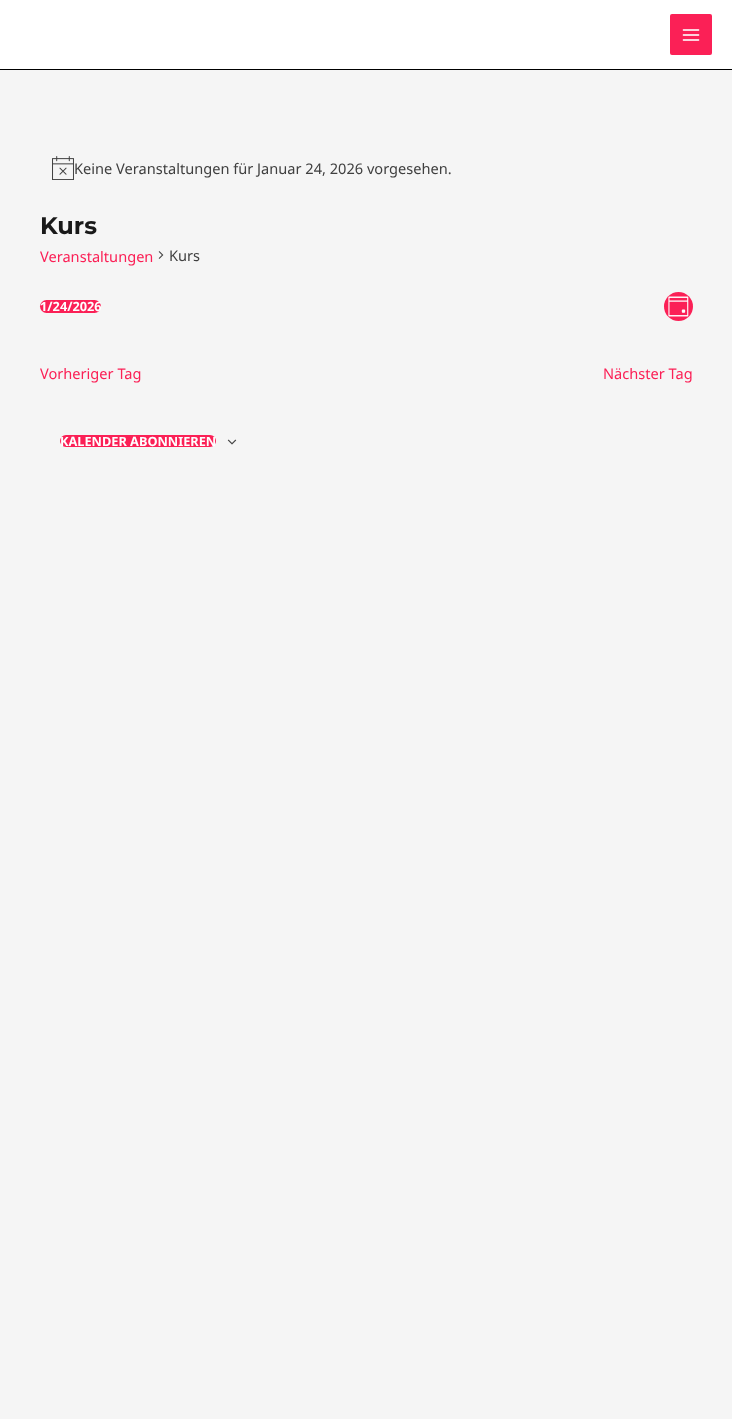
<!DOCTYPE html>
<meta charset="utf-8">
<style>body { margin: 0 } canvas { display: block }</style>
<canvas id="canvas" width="732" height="1419"></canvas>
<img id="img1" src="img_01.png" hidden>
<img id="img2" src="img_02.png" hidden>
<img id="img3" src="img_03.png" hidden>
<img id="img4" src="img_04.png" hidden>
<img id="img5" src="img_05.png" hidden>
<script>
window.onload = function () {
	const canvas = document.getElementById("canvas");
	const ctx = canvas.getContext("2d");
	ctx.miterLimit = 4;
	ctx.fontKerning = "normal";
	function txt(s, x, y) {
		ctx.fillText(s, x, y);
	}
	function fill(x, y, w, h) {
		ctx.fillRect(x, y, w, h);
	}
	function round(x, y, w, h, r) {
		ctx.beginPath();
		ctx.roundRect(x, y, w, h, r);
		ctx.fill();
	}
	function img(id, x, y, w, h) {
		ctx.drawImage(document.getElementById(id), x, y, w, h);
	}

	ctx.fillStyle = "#F5F5F5";
	fill(0, 0, 732, 1419);
	ctx.fillStyle = "#FFFFFF";
	fill(0, 0, 732, 69);
	ctx.fillStyle = "#000000";
	fill(0, 69, 732, 1);
	ctx.fillStyle = "#FB2056";
	round(670, 14, 42, 41, 2);
	img("img1", 682, 29, 18, 12);
	img("img2", 52, 156, 22, 24);
	img("img3", 158, 251, 6, 8);
	round(40, 300, 61, 13, 6.5);
	ctx.beginPath();
	ctx.arc(678.5, 306.5, 14.5, 0, Math.PI * 2);
	ctx.fill();
	img("img4", 668, 296, 21, 21);
	round(60, 435, 156, 12, 6);
	img("img5", 227, 439, 10, 6);
	ctx.font = "14.6px Noto Sans";
	ctx.fillStyle = "#404040";
	txt("Keine Veranstaltungen für Januar 24, 2026 vorgesehen.", 74, 174);
	ctx.font = "100 24px Montserrat";
	ctx.fillStyle = "#191919";
	txt("Kurs", 40, 234);
	ctx.font = "14.6px Noto Sans";
	ctx.fillStyle = "#FB2056";
	txt("Veranstaltungen", 40, 262);
	ctx.fillStyle = "#404040";
	txt("Kurs", 169, 261);
	ctx.font = "bold 12.75px Noto Sans";
	ctx.fillStyle = "#FFFFFF";
	txt("1/24/2026", 40, 311);
	ctx.font = "14.6px Noto Sans";
	ctx.fillStyle = "#FB2056";
	txt("Vorheriger Tag", 40, 379);
	txt("Nächster Tag", 603, 379);
	ctx.font = "bold 12.75px Noto Sans";
	ctx.fillStyle = "#FFFFFF";
	txt("KALENDER ABONNIEREN", 60, 446);
};
</script>
